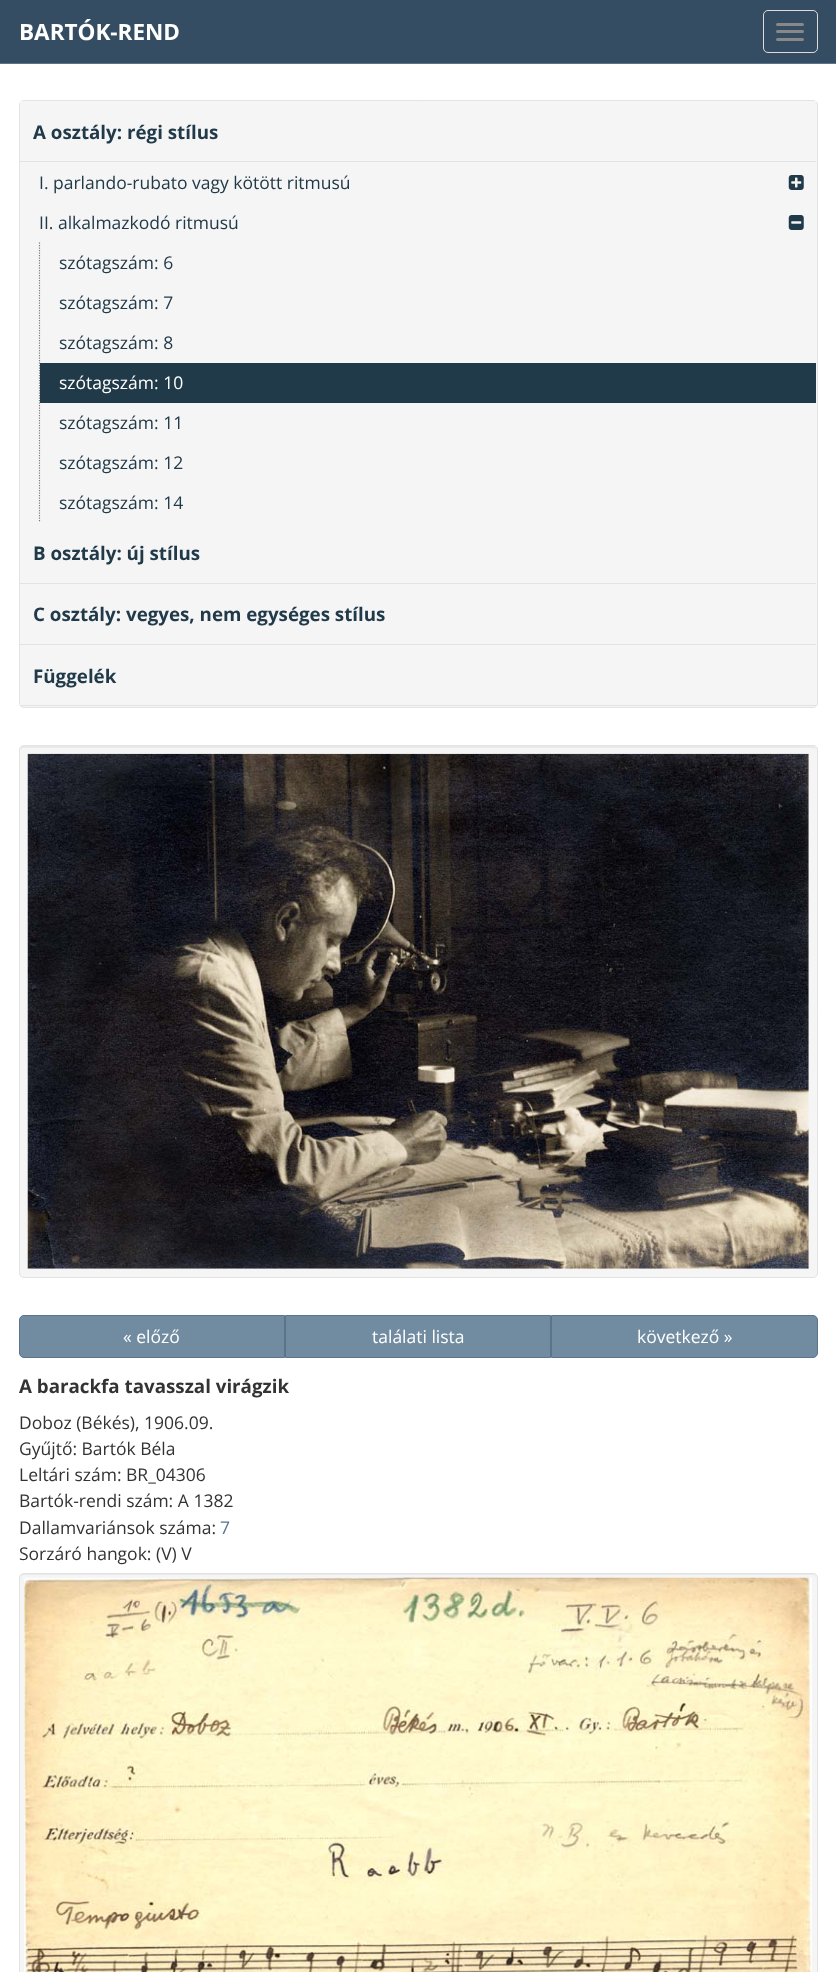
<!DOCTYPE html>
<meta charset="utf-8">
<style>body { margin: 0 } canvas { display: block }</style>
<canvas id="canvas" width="836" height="1972"></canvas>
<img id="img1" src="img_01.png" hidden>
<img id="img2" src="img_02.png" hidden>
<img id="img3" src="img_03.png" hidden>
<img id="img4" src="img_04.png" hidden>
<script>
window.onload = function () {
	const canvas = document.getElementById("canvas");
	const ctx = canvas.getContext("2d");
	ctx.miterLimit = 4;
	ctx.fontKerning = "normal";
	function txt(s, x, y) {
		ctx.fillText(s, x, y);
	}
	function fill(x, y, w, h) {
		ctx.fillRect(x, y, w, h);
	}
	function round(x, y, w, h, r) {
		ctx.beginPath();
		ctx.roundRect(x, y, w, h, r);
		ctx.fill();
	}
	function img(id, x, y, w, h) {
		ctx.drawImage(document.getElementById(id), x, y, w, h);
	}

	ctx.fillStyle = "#FFFFFF";
	fill(0, 0, 836, 1972);
	ctx.fillStyle = "#354D62";
	fill(0, 0, 836, 63);
	ctx.fillStyle = "#59748C";
	fill(0, 63, 836, 1);
	ctx.beginPath();
	ctx.roundRect(763.5, 10.5, 54, 42, 4.5);
	ctx.strokeStyle = "#DDDDDD";
	ctx.stroke();
	ctx.fillStyle = "#888888";
	round(776, 23, 28, 3, 1.5);
	round(776, 30, 28, 3, 1.5);
	round(776, 38, 28, 3, 1.5);
	ctx.fillStyle = "#F5F5F5";
	ctx.beginPath();
	ctx.roundRect(19.5, 100.5, 798, 607, 4.5);
	ctx.fill();
	ctx.strokeStyle = "#E3E3E3";
	ctx.stroke();
	fill(20, 101, 796, 3);
	ctx.fillStyle = "#E3E3E3";
	fill(20, 161, 796, 1);
	img("img1", 788, 175, 16, 15);
	img("img2", 788, 215, 16, 15);
	ctx.beginPath();
	ctx.moveTo(39.5, 242.5);
	ctx.lineTo(39.5, 522.5);
	ctx.strokeStyle = "#7B7B7B";
	ctx.lineWidth = 1.2;
	ctx.setLineDash([1.25, 1.25]);
	ctx.stroke();
	ctx.fillStyle = "#213A49";
	fill(40, 363, 776, 40);
	ctx.fillStyle = "#E3E3E3";
	fill(20, 583, 796, 1);
	fill(20, 644, 796, 1);
	ctx.fillStyle = "#F5F5F5";
	fill(20, 704, 1, 1);
	ctx.fillStyle = "#E3E3E3";
	fill(20, 705, 796, 1);
	ctx.fillStyle = "#F5F5F5";
	round(19, 745, 799, 533, 5);
	ctx.fillStyle = "#E9E9E9";
	ctx.beginPath();
	ctx.moveTo(24, 748);
	ctx.lineTo(812, 748);
	ctx.bezierCurveTo(815, 748, 816, 749, 816, 751);
	ctx.bezierCurveTo(816, 748, 815, 746, 812, 746);
	ctx.lineTo(24, 746);
	ctx.bezierCurveTo(21, 746, 20, 748, 20, 751);
	ctx.bezierCurveTo(20, 749, 22, 748, 24, 748);
	ctx.closePath();
	ctx.fill();
	ctx.beginPath();
	ctx.roundRect(19.5, 745.5, 798, 532, 4.5);
	ctx.strokeStyle = "#E3E3E3";
	ctx.lineWidth = 1;
	ctx.setLineDash([]);
	ctx.stroke();
	img("img3", 27, 753, 782, 516);
	ctx.fillStyle = "#718CA1";
	ctx.beginPath();
	ctx.roundRect(19.5, 1315.5, 265, 42, [4.5, 0, 0, 4.5]);
	ctx.fill();
	ctx.strokeStyle = "#59748C";
	ctx.stroke();
	ctx.beginPath();
	ctx.rect(285.5, 1315.5, 265, 42);
	ctx.fill();
	ctx.stroke();
	ctx.beginPath();
	ctx.roundRect(551.5, 1315.5, 266, 42, [0, 4.5, 4.5, 0]);
	ctx.fill();
	ctx.stroke();
	ctx.fillStyle = "#F5F5F5";
	round(19, 1573, 799, 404, 5);
	ctx.fillStyle = "#E9E9E9";
	ctx.beginPath();
	ctx.moveTo(24, 1575);
	ctx.lineTo(812, 1575);
	ctx.bezierCurveTo(815, 1575, 816, 1577, 816, 1579);
	ctx.bezierCurveTo(816, 1576, 815, 1574, 812, 1574);
	ctx.lineTo(24, 1574);
	ctx.bezierCurveTo(21, 1574, 20, 1576, 20, 1579);
	ctx.bezierCurveTo(20, 1577, 22, 1575, 24, 1575);
	ctx.closePath();
	ctx.fill();
	ctx.beginPath();
	ctx.roundRect(19.5, 1573.5, 798, 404, 4.5);
	ctx.strokeStyle = "#E3E3E3";
	ctx.stroke();
	img("img4", 24, 1577, 788, 395);
	ctx.font = "bold 22.5px Open Sans";
	ctx.fillStyle = "#FFFFFF";
	txt("BARTÓK-REND", 19, 40);
	ctx.font = "bold 18.75px Open Sans";
	ctx.fillStyle = "#213A49";
	txt("A osztály: régi stílus", 33, 139);
	ctx.font = "17.5px Open Sans";
	txt("I. parlando-rubato vagy kötött ritmusú", 39, 189);
	txt("II. alkalmazkodó ritmusú", 39, 229);
	txt("szótagszám: 6", 59, 269);
	txt("szótagszám: 7", 59, 309);
	txt("szótagszám: 8", 59, 349);
	ctx.fillStyle = "#FFFFFF";
	txt("szótagszám: 10", 59, 389);
	ctx.fillStyle = "#213A49";
	txt("szótagszám: 11", 59, 429);
	txt("szótagszám: 12", 59, 469);
	txt("szótagszám: 14", 59, 509);
	ctx.font = "bold 18.75px Open Sans";
	txt("B osztály: új stílus", 33, 560);
	txt("C osztály: vegyes, nem egységes stílus", 33, 621);
	txt("Függelék", 33, 683);
	ctx.font = "17.5px Open Sans";
	ctx.fillStyle = "#FFFFFF";
	txt("« előző", 123, 1343);
	txt("találati lista", 372, 1343);
	txt("következő »", 637, 1343);
	ctx.font = "bold 18.75px Open Sans";
	ctx.fillStyle = "#333333";
	txt("A barackfa tavasszal virágzik", 19, 1393);
	ctx.font = "17.5px Open Sans";
	txt("Doboz (Békés), 1906.09.", 19, 1429);
	txt("Gyűjtő: Bartók Béla", 19, 1455);
	txt("Leltári szám: BR_04306", 19, 1481);
	txt("Bartók-rendi szám: A 1382", 19, 1507);
	txt("Dallamvariánsok száma:", 19, 1534);
	ctx.fillStyle = "#59748C";
	txt("7", 220, 1534);
	ctx.fillStyle = "#333333";
	txt("Sorzáró hangok: (V) V", 19, 1560);
};
</script>
